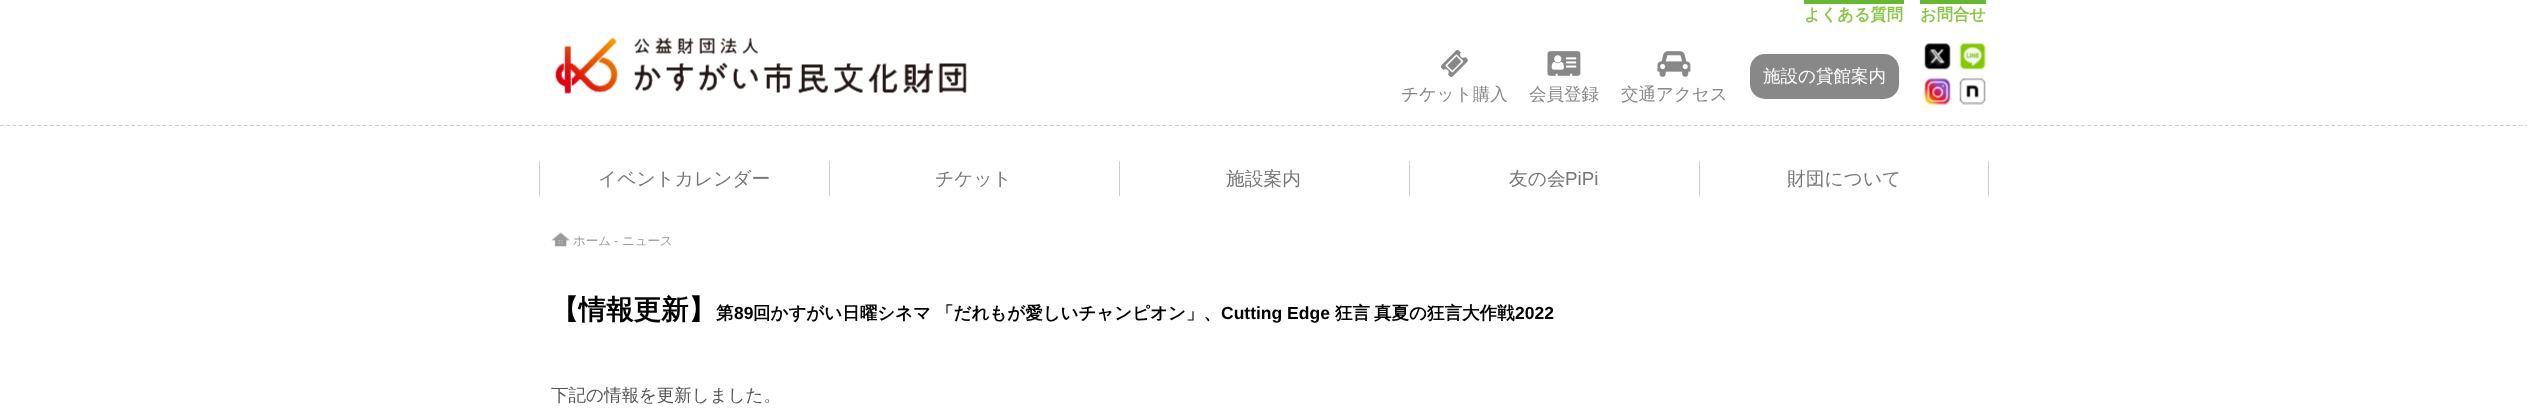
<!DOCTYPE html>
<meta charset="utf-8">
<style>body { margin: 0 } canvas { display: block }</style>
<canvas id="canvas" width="2527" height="419"></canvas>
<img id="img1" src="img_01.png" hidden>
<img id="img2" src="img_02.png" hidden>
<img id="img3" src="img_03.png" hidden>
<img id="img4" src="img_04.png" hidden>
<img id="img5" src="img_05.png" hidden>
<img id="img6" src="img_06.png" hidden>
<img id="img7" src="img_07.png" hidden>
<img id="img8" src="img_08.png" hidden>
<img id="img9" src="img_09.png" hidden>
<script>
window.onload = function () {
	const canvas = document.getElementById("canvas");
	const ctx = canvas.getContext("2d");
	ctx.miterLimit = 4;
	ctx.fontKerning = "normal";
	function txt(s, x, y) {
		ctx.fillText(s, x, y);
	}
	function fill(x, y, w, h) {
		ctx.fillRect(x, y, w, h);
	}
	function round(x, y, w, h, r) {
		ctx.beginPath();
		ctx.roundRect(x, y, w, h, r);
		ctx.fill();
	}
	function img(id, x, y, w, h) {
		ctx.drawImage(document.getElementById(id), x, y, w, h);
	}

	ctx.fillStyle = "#FFFFFF";
	fill(0, 0, 2527, 419);
	img("img1", 555, 37, 412, 57);
	ctx.fillStyle = "#67B733";
	fill(1804, 0, 100, 4);
	fill(1920, 0, 66, 4);
	ctx.fillStyle = "#888888";
	round(1750, 54, 149, 45, 15);
	img("img2", 1924, 43, 27, 27);
	img("img3", 1959, 43, 27, 27);
	img("img4", 1924, 78, 27, 27);
	img("img5", 1959, 78, 27, 27);
	img("img6", 1440, 50, 28, 27);
	img("img7", 1547, 51, 34, 25);
	img("img8", 1657, 51, 34, 26);
	ctx.beginPath();
	ctx.moveTo(0, 125.5);
	ctx.lineTo(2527.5, 125.5);
	ctx.strokeStyle = "#CCCCCC";
	ctx.lineWidth = 1.2;
	ctx.setLineDash([3.75, 2.5]);
	ctx.stroke();
	ctx.fillStyle = "#CCCCCC";
	round(539, 161, 1, 35, 0.5);
	round(829, 161, 1, 35, 0.5);
	round(1119, 161, 1, 35, 0.5);
	round(1409, 161, 1, 35, 0.5);
	round(1699, 161, 1, 35, 0.5);
	round(1988, 161, 1, 35, 0.5);
	img("img9", 551, 232, 19, 15);
	ctx.font = "bold 16.25px WenQuanYi Zen Hei";
	ctx.fillStyle = "#87C743";
	txt("よくある質問", 1804, 20);
	txt("お問合せ", 1920, 20);
	ctx.font = "500 17.5px WenQuanYi Zen Hei";
	ctx.fillStyle = "#FFFFFF";
	txt("施設の貸館案内", 1763, 82);
	ctx.fillStyle = "#888888";
	txt("チケット購入", 1401, 100);
	txt("会員登録", 1529, 100);
	txt("交通アクセス", 1621, 100);
	ctx.font = "500 18.75px WenQuanYi Zen Hei";
	ctx.fillStyle = "#777777";
	txt("イベントカレンダー", 598, 185);
	txt("チケット", 935, 185);
	txt("施設案内", 1226, 185);
	txt("友の会", 1509, 185);
	ctx.font = "18.75px Liberation Sans";
	txt("PiPi", 1565, 185);
	ctx.font = "500 18.75px WenQuanYi Zen Hei";
	txt("財団について", 1787, 185);
	ctx.font = "500 12.5px WenQuanYi Zen Hei";
	ctx.fillStyle = "#999999";
	txt("ホーム", 573, 245);
	ctx.font = "12.5px Liberation Sans";
	txt("-", 614, 245);
	ctx.font = "500 12.5px WenQuanYi Zen Hei";
	txt("ニュース", 622, 245);
	ctx.font = "bold 27.5px WenQuanYi Zen Hei";
	ctx.fillStyle = "#000000";
	txt("【情報更新】", 551, 319);
	ctx.font = "bold 17.5px WenQuanYi Zen Hei";
	txt("第", 716, 319);
	ctx.font = "bold 17.5px Liberation Sans";
	txt("89", 734, 319);
	ctx.font = "bold 17.5px WenQuanYi Zen Hei";
	txt("回かすがい日曜シネマ", 753, 319);
	txt("「だれもが愛しいチャンピオン」、", 936, 319);
	ctx.font = "bold 17.5px Liberation Sans";
	txt("Cutting Edge", 1221, 319);
	ctx.font = "bold 17.5px WenQuanYi Zen Hei";
	txt("狂言", 1335, 319);
	txt("真夏の狂言大作戦", 1374, 319);
	ctx.font = "bold 17.5px Liberation Sans";
	txt("2022", 1515, 319);
	ctx.font = "500 17.5px WenQuanYi Zen Hei";
	ctx.fillStyle = "#555555";
	txt("下記の情報を更新しました。", 551, 401);
};
</script>
